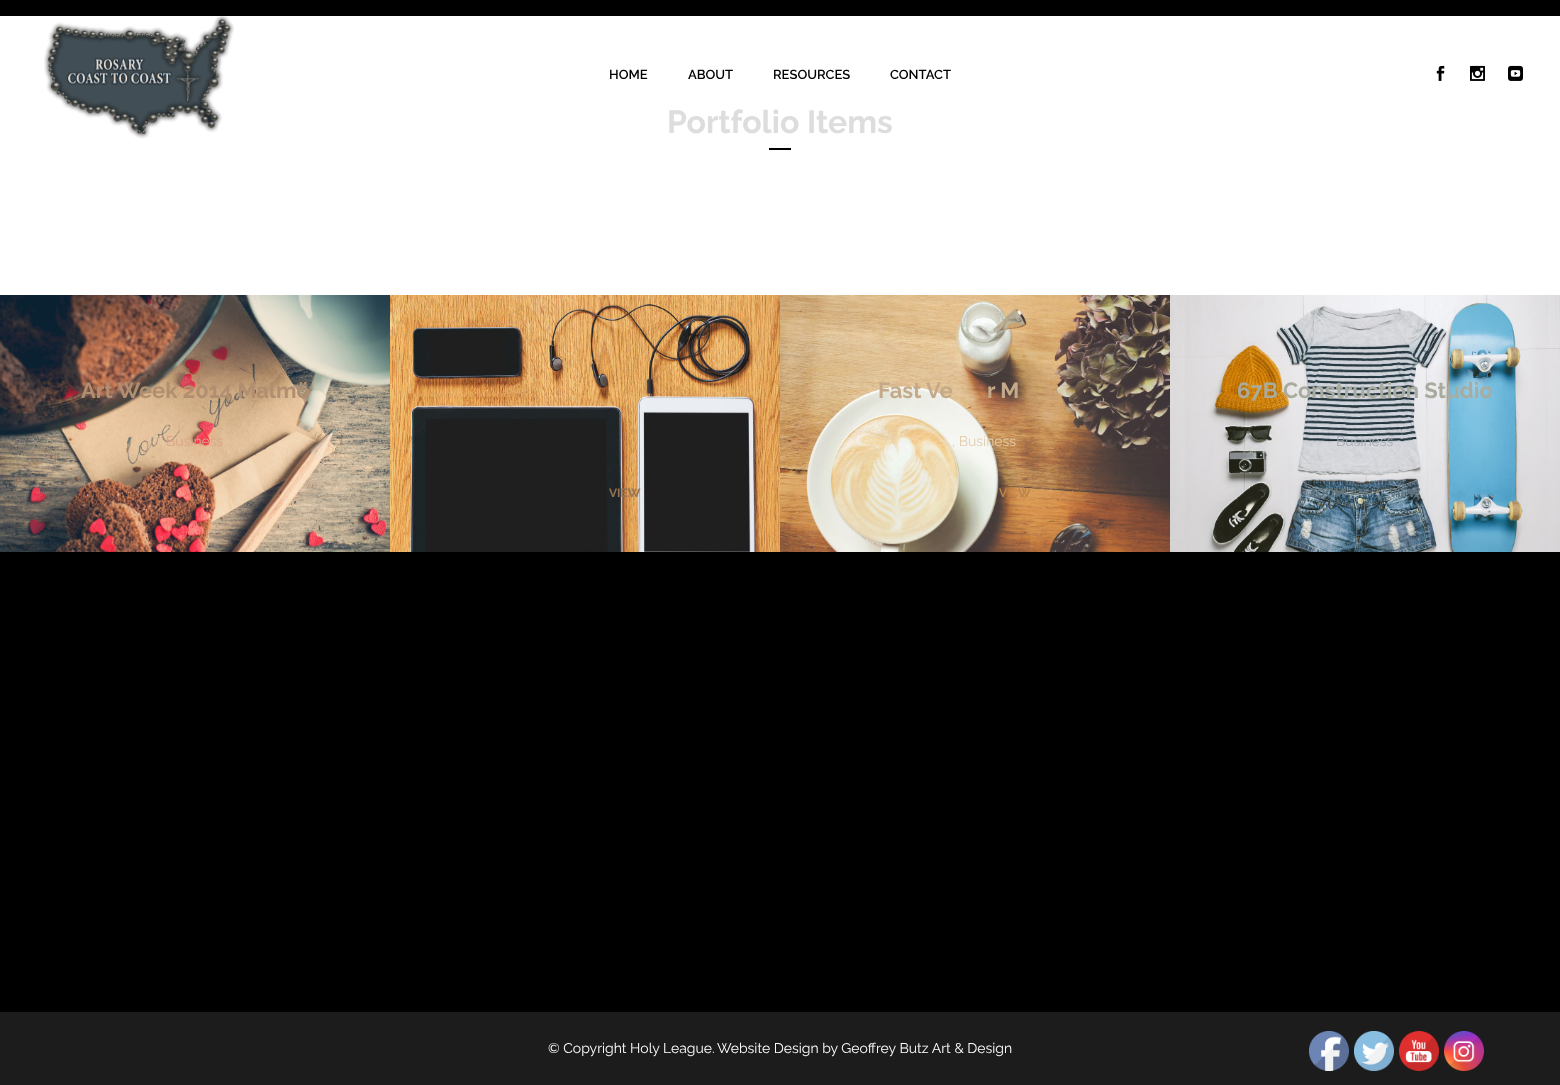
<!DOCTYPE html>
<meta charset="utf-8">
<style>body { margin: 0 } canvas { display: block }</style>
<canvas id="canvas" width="1560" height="1085"></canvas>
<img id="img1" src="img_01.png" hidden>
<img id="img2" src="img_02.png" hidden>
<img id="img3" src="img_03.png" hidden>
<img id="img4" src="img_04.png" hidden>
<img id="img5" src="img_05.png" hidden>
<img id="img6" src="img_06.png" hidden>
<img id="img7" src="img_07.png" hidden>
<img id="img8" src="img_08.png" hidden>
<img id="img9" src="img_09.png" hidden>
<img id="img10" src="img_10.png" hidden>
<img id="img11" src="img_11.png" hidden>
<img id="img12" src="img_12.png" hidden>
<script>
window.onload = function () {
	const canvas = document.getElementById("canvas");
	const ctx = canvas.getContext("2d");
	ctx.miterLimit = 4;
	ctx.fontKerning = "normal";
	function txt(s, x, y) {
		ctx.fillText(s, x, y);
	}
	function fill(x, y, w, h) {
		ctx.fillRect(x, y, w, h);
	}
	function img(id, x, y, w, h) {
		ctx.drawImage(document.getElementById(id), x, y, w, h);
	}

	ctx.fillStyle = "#000000";
	fill(0, 0, 1560, 1085);
	ctx.fillStyle = "#FFFFFF";
	fill(0, 16, 1560, 279);
	img("img1", 44, 16, 190, 123);
	img("img2", 1436, 65, 9, 16);
	img("img3", 1470, 65, 15, 16);
	img("img4", 1508, 65, 15, 16);
	ctx.fillStyle = "#000000";
	fill(769, 148, 22, 2);
	img("img5", 0, 295, 390, 257);
	img("img6", 390, 295, 390, 257);
	img("img7", 780, 295, 390, 257);
	img("img8", 1170, 295, 390, 257);
	ctx.fillStyle = "#1C1C1C";
	fill(0, 1012, 1560, 73);
	img("img9", 1309, 1031, 40, 40);
	img("img10", 1354, 1031, 40, 40);
	img("img11", 1399, 1031, 40, 40);
	img("img12", 1444, 1031, 40, 40);
	ctx.font = "600 13px Raleway";
	ctx.fillStyle = "#000000";
	txt("HOME", 609, 79);
	txt("ABOUT", 688, 79);
	txt("RESOURCES", 773, 79);
	txt("CONTACT", 890, 79);
	ctx.font = "bold 32px Raleway";
	ctx.fillStyle = "#DDDDDD";
	txt("Portfolio Items", 667, 133);
	ctx.font = "bold 22px Raleway";
	ctx.fillStyle = "#B18E70";
	txt("Art Week 2014 Malmö", 81, 398);
	ctx.font = "14px Raleway";
	ctx.fillStyle = "#DEA287";
	txt("Business", 166, 446);
	ctx.font = "bold 12px Raleway";
	ctx.fillStyle = "#937352";
	txt("VIEW", 609, 497);
	ctx.font = "bold 22px Raleway";
	ctx.fillStyle = "#C4A98A";
	txt("Fast Ve", 878, 398);
	txt("r M", 987, 398);
	ctx.font = "14px Raleway";
	ctx.fillStyle = "#E3CDAF";
	txt(", Business", 952, 446);
	ctx.font = "bold 12px Raleway";
	ctx.fillStyle = "#BB834C";
	txt("V", 999, 497);
	txt("W", 1018, 497);
	ctx.font = "bold 22px Raleway";
	ctx.fillStyle = "#AAAB9F";
	txt("67B Construction Studio", 1237, 398);
	ctx.font = "14px Raleway";
	ctx.fillStyle = "#A4ABB1";
	txt("Business", 1336, 446);
	ctx.font = "bold 12px Raleway";
	ctx.fillStyle = "#607681";
	txt("ZOOM", 1309, 497);
	txt("VIEW", 1389, 497);
	ctx.font = "14px Raleway";
	ctx.fillStyle = "#FFFFFF";
	txt("© Copyright Holy League.", 548, 1053);
	txt("Website Design by Geoffrey Butz Art & Design", 717, 1053);
};
</script>
